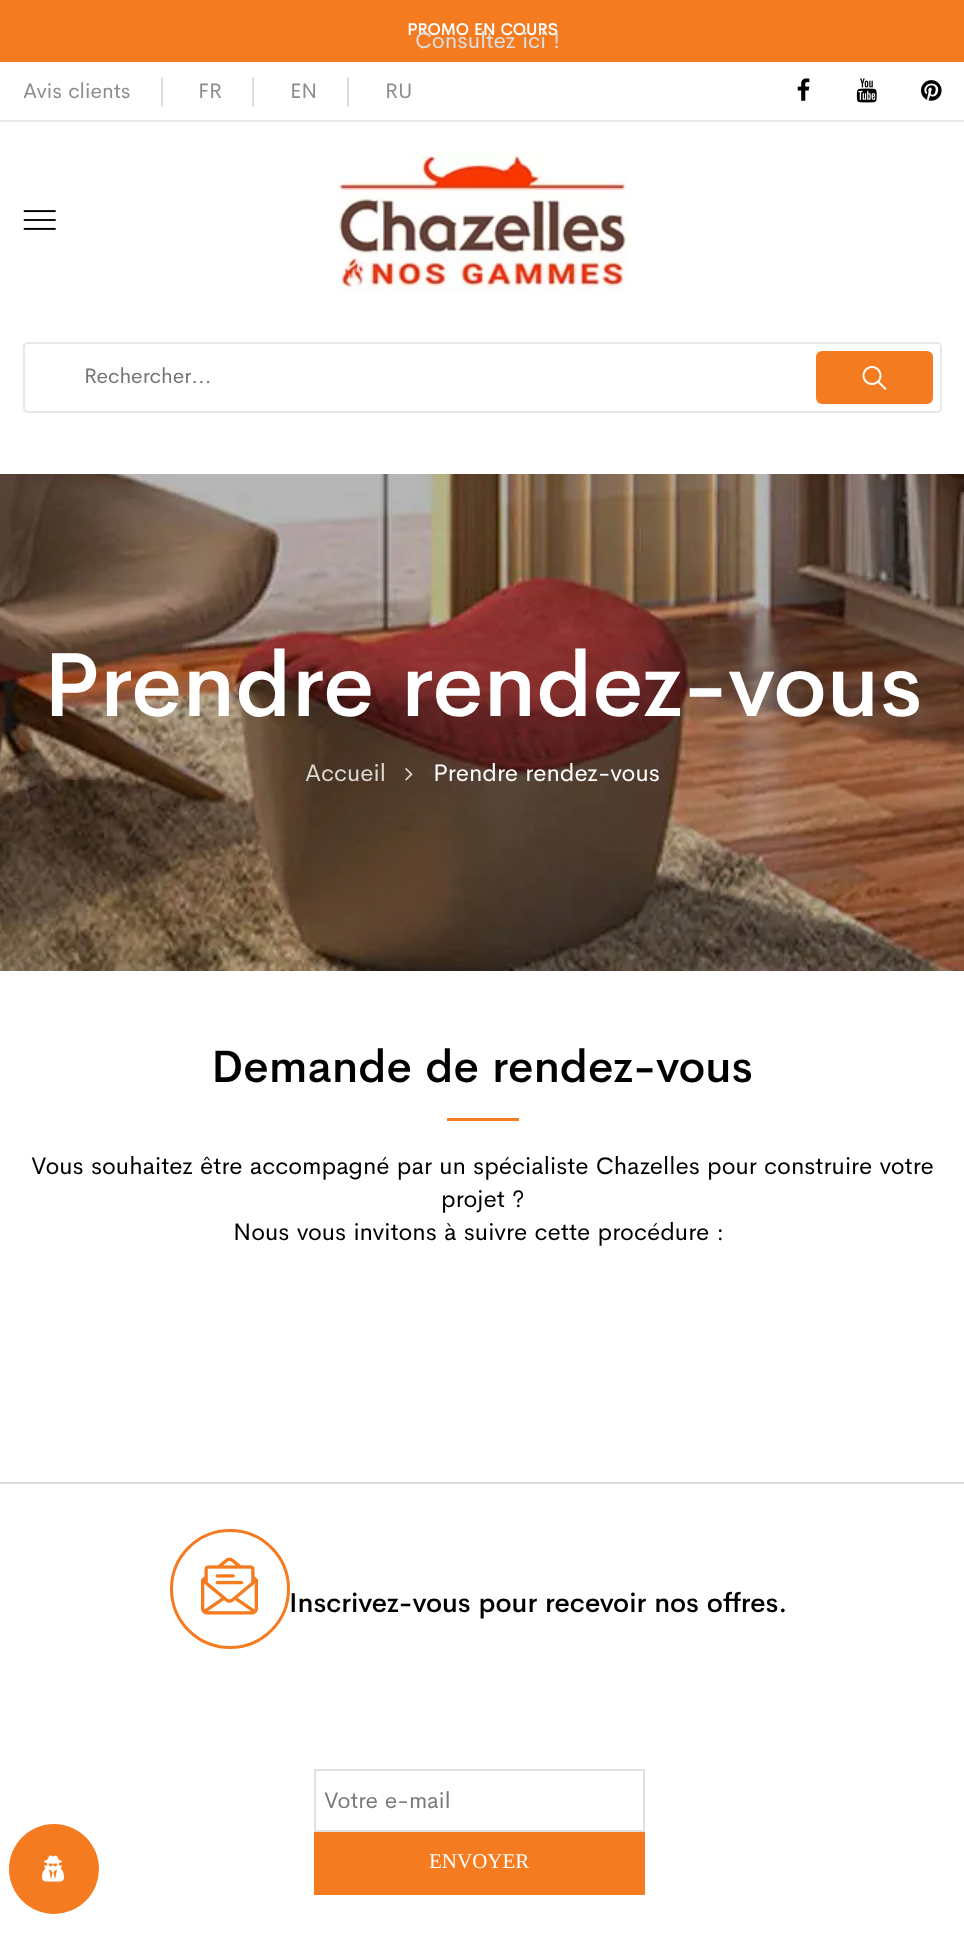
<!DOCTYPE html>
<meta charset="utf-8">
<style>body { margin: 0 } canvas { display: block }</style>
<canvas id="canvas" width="964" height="1933"></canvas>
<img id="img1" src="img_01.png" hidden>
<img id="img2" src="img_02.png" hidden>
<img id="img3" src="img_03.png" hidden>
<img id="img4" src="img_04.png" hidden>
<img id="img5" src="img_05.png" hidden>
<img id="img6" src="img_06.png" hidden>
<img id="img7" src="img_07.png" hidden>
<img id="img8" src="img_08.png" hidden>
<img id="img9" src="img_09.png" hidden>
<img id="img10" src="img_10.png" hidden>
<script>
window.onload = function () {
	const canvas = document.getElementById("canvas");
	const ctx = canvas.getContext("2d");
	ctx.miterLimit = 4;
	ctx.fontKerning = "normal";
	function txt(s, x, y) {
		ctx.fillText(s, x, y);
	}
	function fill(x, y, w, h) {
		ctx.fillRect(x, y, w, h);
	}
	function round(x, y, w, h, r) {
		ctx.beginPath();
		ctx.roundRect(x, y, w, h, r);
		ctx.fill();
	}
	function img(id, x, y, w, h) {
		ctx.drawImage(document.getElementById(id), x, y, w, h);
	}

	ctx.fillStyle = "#FFFFFF";
	fill(0, 0, 964, 1933);
	ctx.fillStyle = "#F57B20";
	fill(0, 0, 964, 62);
	ctx.fillStyle = "#E8E8E8";
	fill(0, 120, 964, 2);
	ctx.fillStyle = "#DEDEDE";
	fill(161, 77, 2, 30);
	fill(252, 77, 2, 30);
	fill(347, 77, 2, 30);
	img("img1", 797, 78, 13, 23);
	img("img2", 856, 78, 21, 25);
	img("img3", 921, 80, 21, 21);
	img("img4", 23, 210, 33, 20);
	img("img5", 334, 152, 297, 140);
	ctx.beginPath();
	ctx.roundRect(24, 343, 917, 69, 4);
	ctx.strokeStyle = "#E8E8E8";
	ctx.lineWidth = 2;
	ctx.stroke();
	ctx.fillStyle = "#F57B20";
	round(816, 351, 117, 53, 6);
	img("img6", 862, 366, 25, 24);
	img("img7", 0, 474, 964, 497);
	img("img8", 405, 768, 8, 13);
	fill(447, 1118, 72, 3);
	ctx.fillStyle = "#DEDEDE";
	fill(0, 1482, 964, 2);
	ctx.beginPath();
	ctx.arc(230, 1589, 58.5, 0, Math.PI * 2);
	ctx.strokeStyle = "#F57B20";
	ctx.lineWidth = 3;
	ctx.stroke();
	img("img9", 201, 1557, 57, 58);
	ctx.strokeStyle = "#E0E0E0";
	ctx.lineWidth = 2;
	ctx.strokeRect(315, 1770, 329, 61);
	ctx.fillStyle = "#F57B20";
	fill(314, 1832, 331, 63);
	ctx.beginPath();
	ctx.arc(54, 1869, 45, 0, Math.PI * 2);
	ctx.fill();
	img("img10", 42, 1855, 22, 27);
	ctx.font = "bold 16.5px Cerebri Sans";
	ctx.fillStyle = "#FFFFFF";
	txt("PROMO EN COURS", 407, 35);
	ctx.font = "22.5px Cerebri Sans";
	ctx.fillStyle = "#DEDEDE";
	txt("Consultez ici !", 415, 48);
	ctx.font = "21px Cerebri Sans";
	ctx.fillStyle = "#8D8D8D";
	txt("Avis clients", 23, 98);
	txt("FR", 198, 98);
	txt("EN", 290, 98);
	txt("RU", 385, 98);
	ctx.fillStyle = "#757575";
	txt("Rechercher...", 84, 383);
	ctx.font = "500 90px Cerebri Sans";
	ctx.fillStyle = "#FFFFFF";
	txt("Prendre rendez-vous", 43, 716);
	ctx.font = "24px Cerebri Sans";
	ctx.fillStyle = "#DBD7D3";
	txt("Accueil", 305, 781);
	ctx.fillStyle = "#FFFFFF";
	txt("Prendre rendez-vous", 433, 781);
	ctx.font = "500 45px Cerebri Sans";
	ctx.fillStyle = "#000000";
	txt("Demande de rendez-vous", 211, 1082);
	ctx.font = "24px Cerebri Sans";
	txt("Vous souhaitez être accompagné par un spécialiste Chazelles pour construire votre", 31, 1174);
	txt("projet ?", 441, 1207);
	txt("Nous vous invitons à suivre cette procédure :", 233, 1240);
	ctx.font = "500 27px Cerebri Sans";
	txt("Inscrivez-vous pour recevoir nos offres.", 289, 1612);
	ctx.font = "22.5px Cerebri Sans";
	ctx.fillStyle = "#797A7C";
	txt("Votre e-mail", 324, 1808);
	ctx.font = "21px Liberation Serif";
	ctx.fillStyle = "#FFFFFF";
	txt("ENVOYER", 429, 1868);
};
</script>
